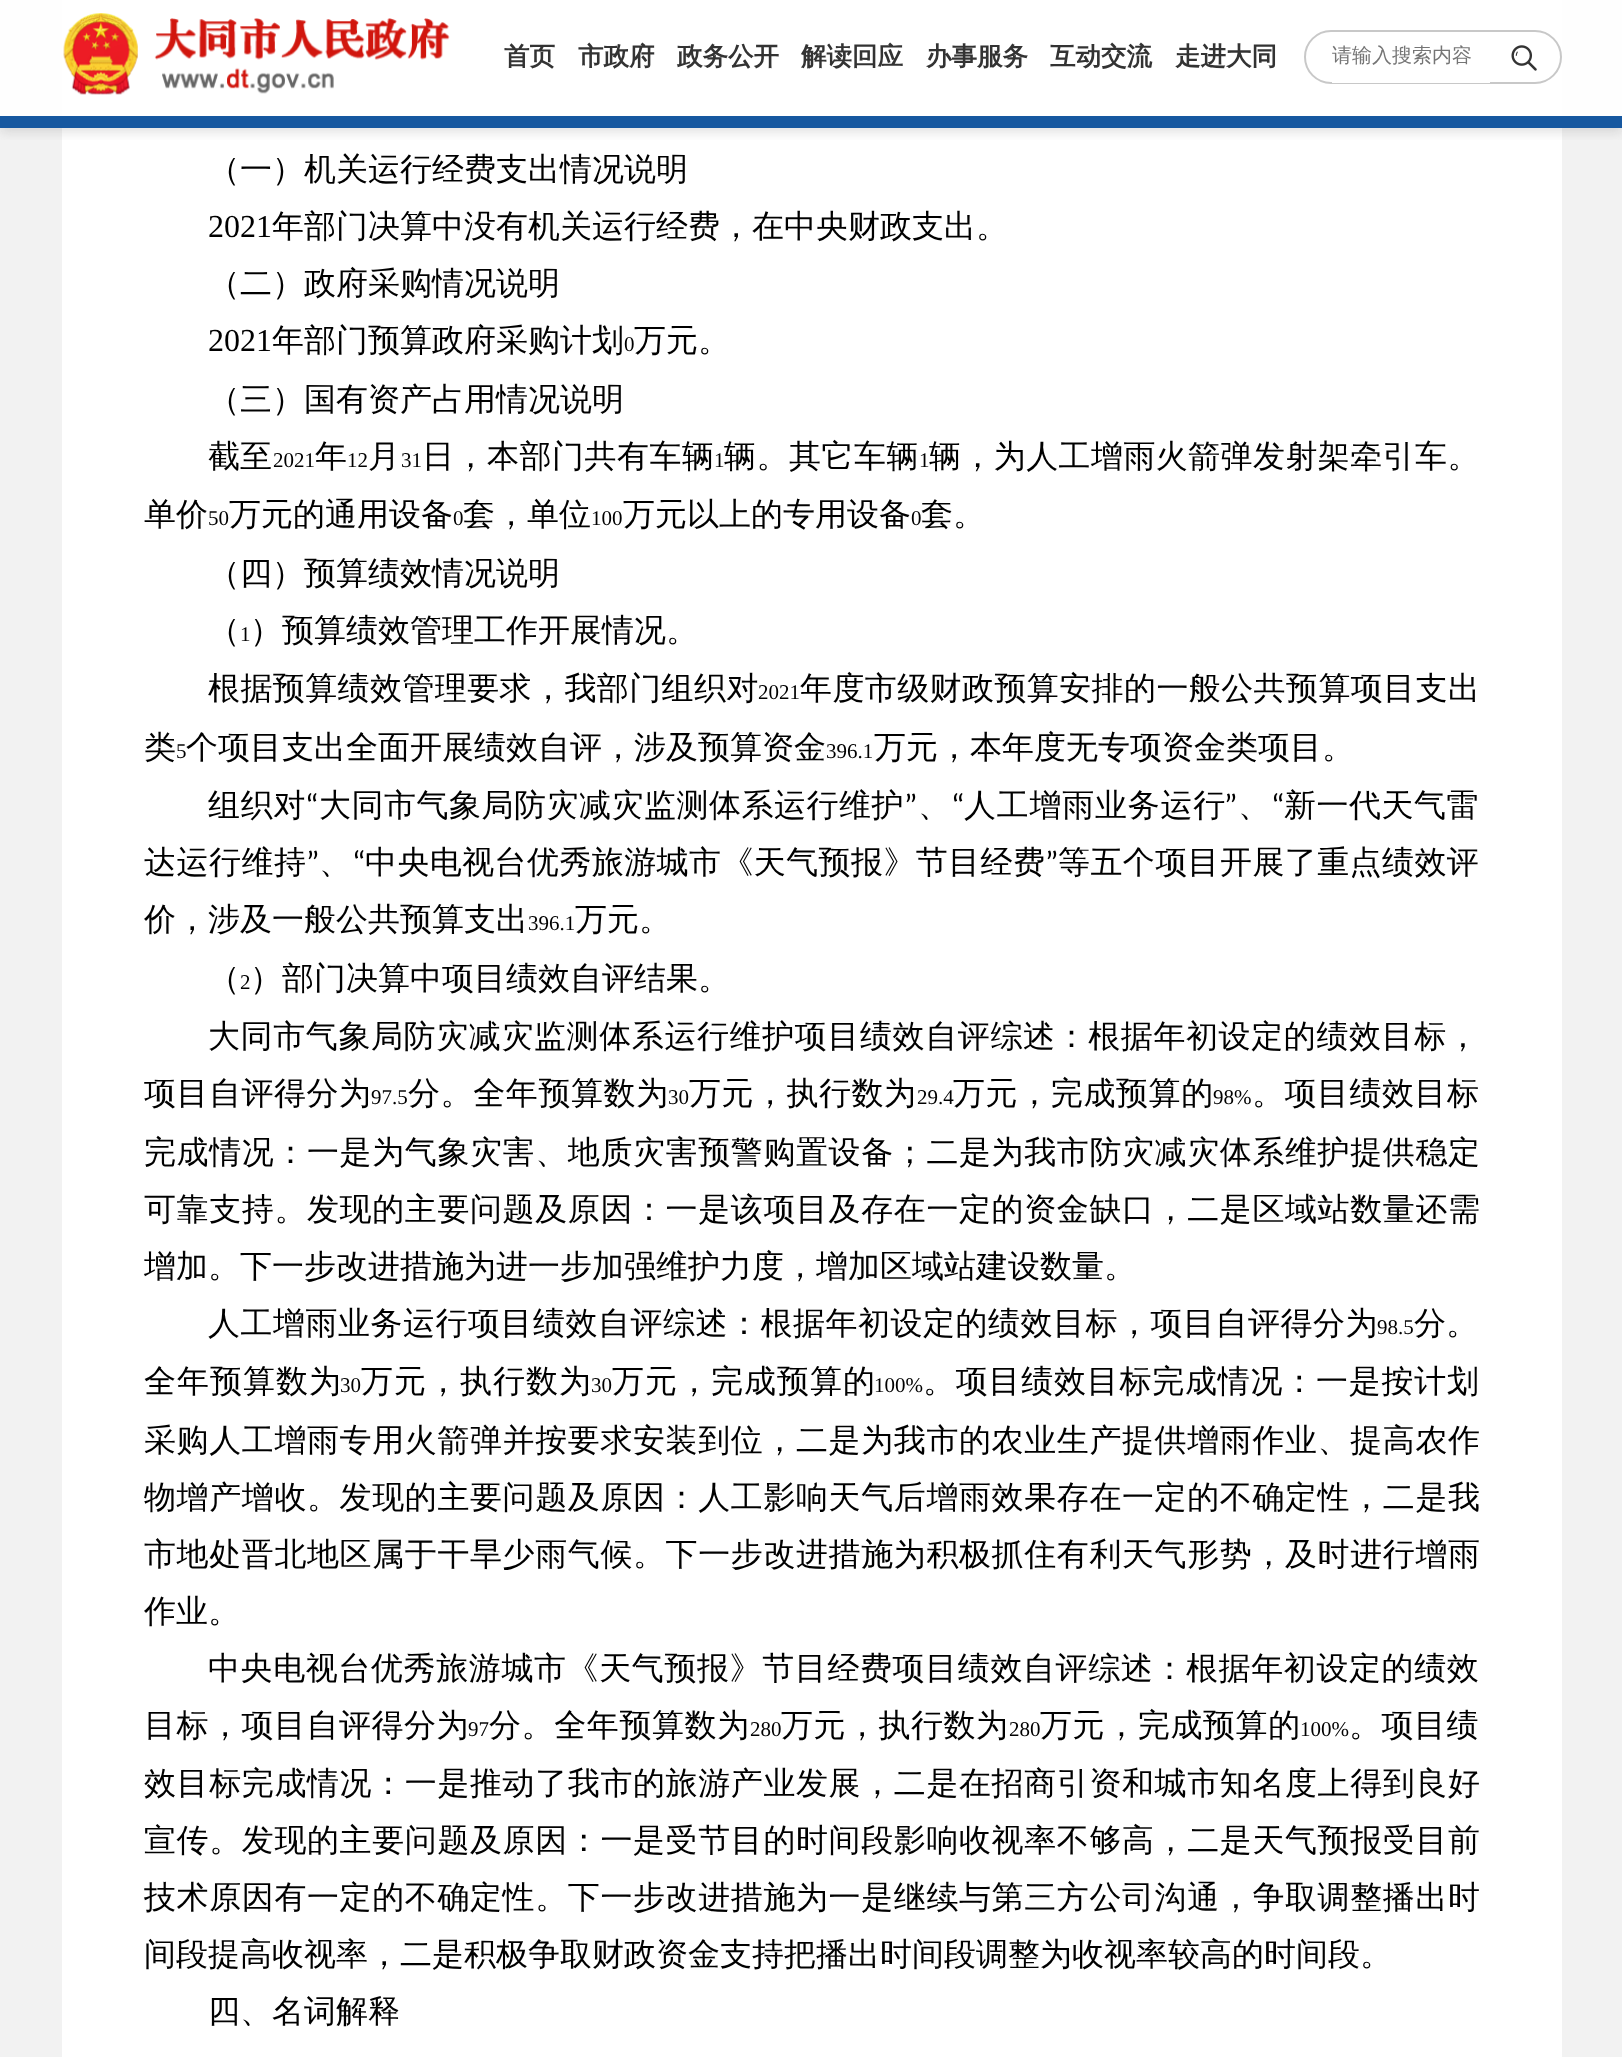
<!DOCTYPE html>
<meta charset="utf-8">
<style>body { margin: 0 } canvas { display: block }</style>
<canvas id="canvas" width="1622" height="2057"></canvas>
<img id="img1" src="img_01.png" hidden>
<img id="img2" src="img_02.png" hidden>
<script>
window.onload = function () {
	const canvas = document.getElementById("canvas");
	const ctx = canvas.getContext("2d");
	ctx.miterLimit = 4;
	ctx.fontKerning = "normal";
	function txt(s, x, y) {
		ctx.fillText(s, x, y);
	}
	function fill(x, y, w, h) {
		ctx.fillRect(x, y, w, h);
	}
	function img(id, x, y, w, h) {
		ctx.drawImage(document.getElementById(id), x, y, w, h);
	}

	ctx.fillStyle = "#F2F2F2";
	fill(0, 0, 1622, 2057);
	ctx.fillStyle = "#FFFFFF";
	fill(62, 0, 1500, 2057);
	ctx.save();
	ctx.beginPath();
	ctx.rect(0, 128, 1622, 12);
	ctx.clip();
	ctx.fillStyle = "rgba(100, 100, 100, 0.2)";
	ctx.filter = "blur(6px)";
	ctx.beginPath();
	ctx.rect(0, 5, 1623, 127);
	ctx.fill();
	ctx.filter = "none";
	ctx.restore();
	ctx.fillStyle = "rgba(255, 255, 255, 0.9)";
	fill(0, 0, 1622, 116);
	ctx.fillStyle = "#1658A0";
	fill(0, 116, 1622, 12);
	img("img1", 63, 13, 387, 82);
	ctx.beginPath();
	ctx.roundRect(1305, 31, 256, 52, 26);
	ctx.strokeStyle = "#C8C8C8";
	ctx.lineWidth = 2;
	ctx.stroke();
	ctx.fillStyle = "#FFFFFF";
	fill(1332, 82, 158, 1);
	img("img2", 1511, 45, 26, 26);
	ctx.font = "bold 25.5px WenQuanYi Zen Hei";
	ctx.fillStyle = "#333333";
	txt("首页", 504, 65);
	txt("市政府", 578, 65);
	txt("政务公开", 677, 65);
	txt("解读回应", 801, 65);
	txt("办事服务", 926, 65);
	txt("互动交流", 1050, 65);
	txt("走进大同", 1175, 65);
	ctx.font = "500 20px WenQuanYi Zen Hei";
	ctx.fillStyle = "#757575";
	txt("请输入搜索内容", 1332, 62);
	ctx.font = "500 32px WenQuanYi Zen Hei";
	ctx.fillStyle = "#000000";
	txt("（一）机关运行经费支出情况说明", 208, 180);
	ctx.font = "32px Liberation Serif";
	txt("2021", 208, 237);
	ctx.font = "500 32px WenQuanYi Zen Hei";
	txt("年部门决算中没有机关运行经费，在中央财政支出。", 272, 237);
	txt("（二）政府采购情况说明", 208, 294);
	ctx.font = "32px Liberation Serif";
	txt("2021", 208, 351);
	ctx.font = "500 32px WenQuanYi Zen Hei";
	txt("年部门预算政府采购计划", 272, 351);
	ctx.font = "21px Liberation Serif";
	txt("0", 624, 351);
	ctx.font = "500 32px WenQuanYi Zen Hei";
	txt("万元。", 634, 351);
	txt("（三）国有资产占用情况说明", 208, 410);
	txt("截至", 208, 467);
	ctx.font = "21px Liberation Serif";
	txt("2021", 273, 467);
	ctx.font = "500 32px WenQuanYi Zen Hei";
	txt("年", 315, 467);
	ctx.font = "21px Liberation Serif";
	txt("12", 347, 467);
	ctx.font = "500 32px WenQuanYi Zen Hei";
	txt("月", 368, 467);
	ctx.font = "21px Liberation Serif";
	txt("31", 401, 467);
	ctx.letterSpacing = "0.5px";
	ctx.font = "500 32px WenQuanYi Zen Hei";
	txt("日，本部门共有车辆", 422, 467);
	ctx.letterSpacing = "0px";
	ctx.font = "21px Liberation Serif";
	txt("1", 714, 467);
	ctx.letterSpacing = "0.5px";
	ctx.font = "500 32px WenQuanYi Zen Hei";
	txt("辆。其它车辆", 724, 467);
	ctx.letterSpacing = "0px";
	ctx.font = "21px Liberation Serif";
	txt("1", 919, 467);
	ctx.letterSpacing = "0.4px";
	ctx.font = "500 32px WenQuanYi Zen Hei";
	txt("辆，为人工增雨火箭弹发射架牵引车。", 929, 467);
	ctx.letterSpacing = "0px";
	txt("单价", 144, 525);
	ctx.font = "21px Liberation Serif";
	txt("50", 208, 525);
	ctx.font = "500 32px WenQuanYi Zen Hei";
	txt("万元的通用设备", 229, 525);
	ctx.font = "21px Liberation Serif";
	txt("0", 453, 525);
	ctx.font = "500 32px WenQuanYi Zen Hei";
	txt("套，单位", 463, 525);
	ctx.font = "21px Liberation Serif";
	txt("100", 591, 525);
	ctx.font = "500 32px WenQuanYi Zen Hei";
	txt("万元以上的专用设备", 623, 525);
	ctx.font = "21px Liberation Serif";
	txt("0", 911, 525);
	ctx.font = "500 32px WenQuanYi Zen Hei";
	txt("套。", 921, 525);
	txt("（四）预算绩效情况说明", 208, 584);
	txt("（", 208, 641);
	ctx.font = "21px Liberation Serif";
	txt("1", 240, 641);
	ctx.font = "500 32px WenQuanYi Zen Hei";
	txt("）预算绩效管理工作开展情况。", 250, 641);
	ctx.letterSpacing = "0.4px";
	txt("根据预算绩效管理要求，我部门组织对", 208, 699);
	ctx.letterSpacing = "0px";
	ctx.font = "21px Liberation Serif";
	txt("2021", 758, 699);
	ctx.letterSpacing = "0.4px";
	ctx.font = "500 32px WenQuanYi Zen Hei";
	txt("年度市级财政预算安排的一般公共预算项目支出", 800, 699);
	ctx.letterSpacing = "0px";
	txt("类", 144, 758);
	ctx.font = "21px Liberation Serif";
	txt("5", 176, 758);
	ctx.font = "500 32px WenQuanYi Zen Hei";
	txt("个项目支出全面开展绩效自评，涉及预算资金", 186, 758);
	ctx.font = "21px Liberation Serif";
	txt("396.1", 826, 758);
	ctx.font = "500 32px WenQuanYi Zen Hei";
	txt("万元，本年度无专项资金类项目。", 874, 758);
	ctx.letterSpacing = "0.75px";
	txt("组织对", 208, 816);
	ctx.letterSpacing = "0px";
	ctx.font = "32px Carlito";
	txt("“", 305, 816);
	ctx.letterSpacing = "0.5px";
	ctx.font = "500 32px WenQuanYi Zen Hei";
	txt("大同市气象局防灾减灾监测体系运行维护", 319, 816);
	ctx.letterSpacing = "0px";
	ctx.font = "32px Carlito";
	txt("”", 904, 816);
	txt("“", 951, 816);
	ctx.letterSpacing = "0.75px";
	ctx.font = "500 32px WenQuanYi Zen Hei";
	txt("人工增雨业务运行", 964, 816);
	ctx.letterSpacing = "0px";
	ctx.font = "32px Carlito";
	txt("”", 1224, 816);
	txt("“", 1271, 816);
	ctx.letterSpacing = "0.5px";
	ctx.font = "500 32px WenQuanYi Zen Hei";
	txt("新一代天气雷", 1284, 816);
	ctx.letterSpacing = "0px";
	txt("、", 918, 816);
	txt("、", 1238, 816);
	ctx.letterSpacing = "0.5px";
	txt("达运行维持", 144, 873);
	ctx.letterSpacing = "0px";
	ctx.font = "32px Carlito";
	txt("”", 306, 873);
	txt("“", 352, 873);
	ctx.letterSpacing = "0.4px";
	ctx.font = "500 32px WenQuanYi Zen Hei";
	txt("中央电视台优秀旅游城市《天气预报》节目经费", 365, 873);
	ctx.letterSpacing = "0px";
	ctx.font = "32px Carlito";
	txt("”", 1045, 873);
	ctx.letterSpacing = "0.4px";
	ctx.font = "500 32px WenQuanYi Zen Hei";
	txt("等五个项目开展了重点绩效评", 1058, 873);
	ctx.letterSpacing = "0px";
	txt("、", 319, 873);
	txt("价，涉及一般公共预算支出", 144, 930);
	ctx.font = "21px Liberation Serif";
	txt("396.1", 528, 930);
	ctx.font = "500 32px WenQuanYi Zen Hei";
	txt("万元。", 575, 930);
	txt("（", 208, 989);
	ctx.font = "21px Liberation Serif";
	txt("2", 240, 989);
	ctx.font = "500 32px WenQuanYi Zen Hei";
	txt("）部门决算中项目绩效自评结果。", 250, 989);
	ctx.letterSpacing = "0.6px";
	txt("大同市气象局防灾减灾监测体系运行维护项目绩效自评综述：根据年初设定的绩效目标，", 208, 1047);
	ctx.letterSpacing = "0.5px";
	txt("项目自评得分为", 144, 1104);
	ctx.letterSpacing = "0px";
	ctx.font = "21px Liberation Serif";
	txt("97.5", 371, 1104);
	ctx.letterSpacing = "0.6px";
	ctx.font = "500 32px WenQuanYi Zen Hei";
	txt("分。全年预算数为", 408, 1104);
	ctx.letterSpacing = "0px";
	ctx.font = "21px Liberation Serif";
	txt("30", 668, 1104);
	ctx.letterSpacing = "0.5px";
	ctx.font = "500 32px WenQuanYi Zen Hei";
	txt("万元，执行数为", 689, 1104);
	ctx.letterSpacing = "0px";
	ctx.font = "21px Liberation Serif";
	txt("29.4", 917, 1104);
	ctx.letterSpacing = "0.6px";
	ctx.font = "500 32px WenQuanYi Zen Hei";
	txt("万元，完成预算的", 953, 1104);
	ctx.letterSpacing = "0px";
	ctx.font = "21px Liberation Serif";
	txt("98%", 1213, 1104);
	ctx.letterSpacing = "0.5px";
	ctx.font = "500 32px WenQuanYi Zen Hei";
	txt("。项目绩效目标", 1252, 1104);
	ctx.letterSpacing = "0.6px";
	txt("完成情况：一是为气象灾害、地质灾害预警购置设备；二是为我市防灾减灾体系维护提供稳定", 144, 1163);
	txt("可靠支持。发现的主要问题及原因：一是该项目及存在一定的资金缺口，二是区域站数量还需", 144, 1220);
	ctx.letterSpacing = "0px";
	txt("增加。下一步改进措施为进一步加强维护力度，增加区域站建设数量。", 144, 1277);
	ctx.letterSpacing = "0.5px";
	txt("人工增雨业务运行项目绩效自评综述：根据年初设定的绩效目标，项目自评得分为", 208, 1334);
	ctx.letterSpacing = "0px";
	ctx.font = "21px Liberation Serif";
	txt("98.5", 1377, 1334);
	ctx.font = "500 32px WenQuanYi Zen Hei";
	txt("分。", 1414, 1334);
	ctx.letterSpacing = "1px";
	txt("全年预算数为", 144, 1392);
	ctx.letterSpacing = "0px";
	ctx.font = "21px Liberation Serif";
	txt("30", 340, 1392);
	ctx.letterSpacing = "1px";
	ctx.font = "500 32px WenQuanYi Zen Hei";
	txt("万元，执行数为", 361, 1392);
	ctx.letterSpacing = "0px";
	ctx.font = "21px Liberation Serif";
	txt("30", 591, 1392);
	ctx.letterSpacing = "1px";
	ctx.font = "500 32px WenQuanYi Zen Hei";
	txt("万元，完成预算的", 612, 1392);
	ctx.letterSpacing = "0px";
	ctx.font = "21px Liberation Serif";
	txt("100%", 874, 1392);
	ctx.letterSpacing = "0.75px";
	ctx.font = "500 32px WenQuanYi Zen Hei";
	txt("。项目绩效目标完成情况：一是按计划", 923, 1392);
	ctx.letterSpacing = "0.6px";
	txt("采购人工增雨专用火箭弹并按要求安装到位，二是为我市的农业生产提供增雨作业、提高农作", 144, 1451);
	txt("物增产增收。发现的主要问题及原因：人工影响天气后增雨效果存在一定的不确定性，二是我", 144, 1508);
	txt("市地处晋北地区属于干旱少雨气候。下一步改进措施为积极抓住有利天气形势，及时进行增雨", 144, 1565);
	ctx.letterSpacing = "0px";
	txt("作业。", 144, 1622);
	ctx.letterSpacing = "0.6px";
	txt("中央电视台优秀旅游城市《天气预报》节目经费项目绩效自评综述：根据年初设定的绩效", 208, 1679);
	ctx.letterSpacing = "0.5px";
	txt("目标，项目自评得分为", 144, 1736);
	ctx.letterSpacing = "0px";
	ctx.font = "21px Liberation Serif";
	txt("97", 468, 1736);
	ctx.letterSpacing = "0.6px";
	ctx.font = "500 32px WenQuanYi Zen Hei";
	txt("分。全年预算数为", 489, 1736);
	ctx.letterSpacing = "0px";
	ctx.font = "21px Liberation Serif";
	txt("280", 750, 1736);
	ctx.letterSpacing = "0.5px";
	ctx.font = "500 32px WenQuanYi Zen Hei";
	txt("万元，执行数为", 781, 1736);
	ctx.letterSpacing = "0px";
	ctx.font = "21px Liberation Serif";
	txt("280", 1009, 1736);
	ctx.letterSpacing = "0.6px";
	ctx.font = "500 32px WenQuanYi Zen Hei";
	txt("万元，完成预算的", 1040, 1736);
	ctx.letterSpacing = "0px";
	ctx.font = "21px Liberation Serif";
	txt("100%", 1300, 1736);
	ctx.letterSpacing = "0.5px";
	ctx.font = "500 32px WenQuanYi Zen Hei";
	txt("。项目绩", 1349, 1736);
	ctx.letterSpacing = "0.6px";
	txt("效目标完成情况：一是推动了我市的旅游产业发展，二是在招商引资和城市知名度上得到良好", 144, 1794);
	txt("宣传。发现的主要问题及原因：一是受节目的时间段影响收视率不够高，二是天气预报受目前", 144, 1851);
	txt("技术原因有一定的不确定性。下一步改进措施为一是继续与第三方公司沟通，争取调整播出时", 144, 1908);
	ctx.letterSpacing = "0px";
	txt("间段提高收视率，二是积极争取财政资金支持把播出时间段调整为收视率较高的时间段。", 144, 1965);
	txt("四、名词解释", 208, 2022);
};
</script>
